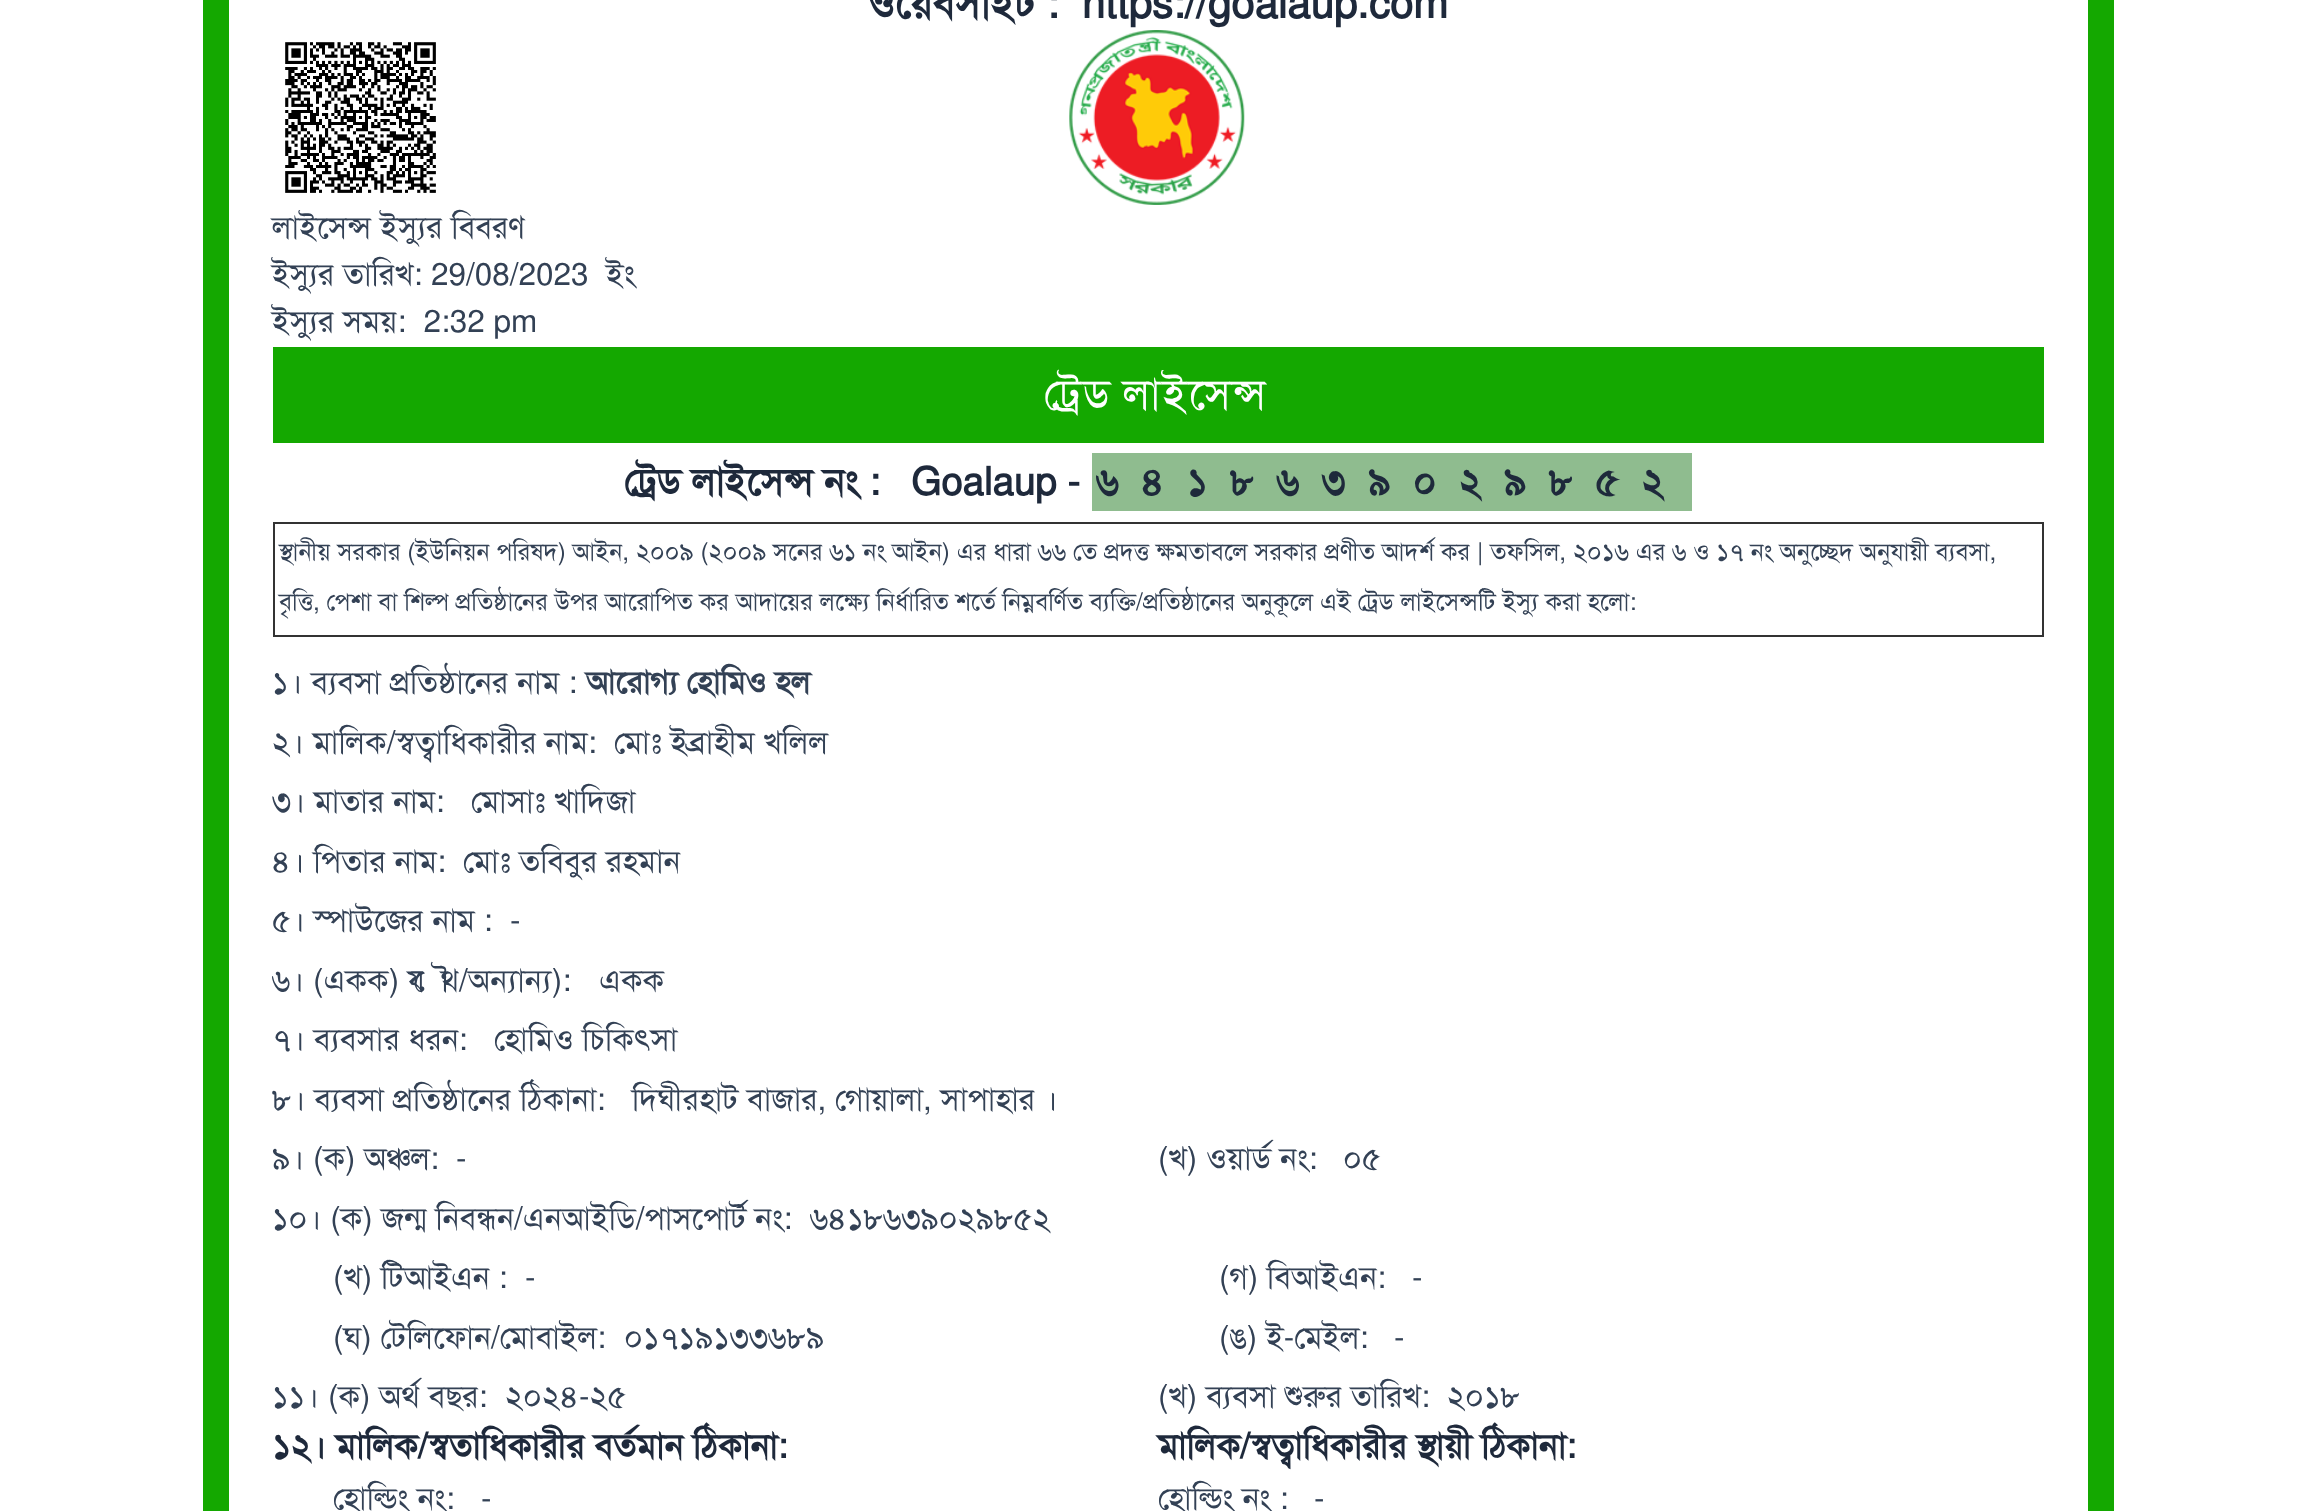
<!DOCTYPE html>
<meta charset="utf-8">
<style>body { margin: 0 } canvas { display: block }</style>
<canvas id="canvas" width="2315" height="1511"></canvas>
<img id="img1" src="img_01.png" hidden>
<img id="img2" src="img_02.png" hidden>
<script>
window.onload = function () {
	const canvas = document.getElementById("canvas");
	const ctx = canvas.getContext("2d");
	ctx.miterLimit = 4;
	ctx.fontKerning = "normal";
	function txt(s, x, y) {
		ctx.fillText(s, x, y);
	}
	function fill(x, y, w, h) {
		ctx.fillRect(x, y, w, h);
	}
	function img(id, x, y, w, h) {
		ctx.drawImage(document.getElementById(id), x, y, w, h);
	}

	ctx.fillStyle = "#FFFFFF";
	fill(0, 0, 2315, 1511);
	ctx.strokeStyle = "#14A800";
	ctx.lineWidth = 26;
	ctx.strokeRect(216, -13, 1885, 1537);
	img("img1", 1069, 30, 176, 175);
	img("img2", 285, 42, 151, 151);
	ctx.fillStyle = "#14A800";
	fill(273, 347, 1771, 96);
	ctx.fillStyle = "#8FBC8F";
	fill(1092, 453, 600, 58);
	ctx.strokeStyle = "#333333";
	ctx.lineWidth = 2;
	ctx.strokeRect(274, 523, 1769, 113);
	ctx.font = "bold 42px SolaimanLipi";
	ctx.fillStyle = "#1E293B";
	txt("ওয়েবসাইট :  https://goalaup.com", 867, 18);
	ctx.font = "31.5px SolaimanLipi";
	ctx.fillStyle = "#334155";
	txt("লাইসেন্স ইস্যুর বিবরণ", 272, 238);
	txt("ইস্যুর তারিখ: 29/08/2023  ইং", 272, 285);
	txt("ইস্যুর সময়:  2:32 pm", 272, 332);
	ctx.letterSpacing = "1.75px";
	ctx.wordSpacing = "-3px";
	ctx.font = "43.75px SolaimanLipi";
	ctx.fillStyle = "#FFFFFF";
	txt("ট্রেড লাইসেন্স", 1044, 409);
	ctx.letterSpacing = "0px";
	ctx.wordSpacing = "0px";
	ctx.font = "bold 38.5px SolaimanLipi";
	ctx.fillStyle = "#1E293B";
	txt("ট্রেড লাইসেন্স নং :", 624, 495);
	txt("Goalaup -", 911, 495);
	ctx.letterSpacing = "22.75px";
	txt("৬৪১৮৬৩৯০২৯৮৫২", 1096, 495);
	ctx.letterSpacing = "0px";
	ctx.font = "24.5px SolaimanLipi";
	ctx.fillStyle = "#334155";
	txt("স্থানীয় সরকার (ইউনিয়ন পরিষদ) আইন, ২০০৯ (২০০৯ সনের ৬১ নং আইন) এর ধারা ৬৬ তে প্রদত্ত ক্ষমতাবলে সরকার প্রণীত আদর্শ কর | তফসিল, ২০১৬ এর ৬ ও ১৭ নং অনুচ্ছেদ অনুযায়ী ব্যবসা,", 279, 560);
	txt("বৃত্তি, পেশা বা শিল্প প্রতিষ্ঠানের উপর আরোপিত কর আদায়ের লক্ষ্যে নির্ধারিত শর্তে নিম্নবর্ণিত ব্যক্তি/প্রতিষ্ঠানের অনুকূলে এই ট্রেড লাইসেন্সটি ইস্যু করা হলো:", 279, 610);
	ctx.font = "31.5px SolaimanLipi";
	txt("১। ব্যবসা প্রতিষ্ঠানের নাম :", 272, 693);
	ctx.font = "bold 31.5px SolaimanLipi";
	txt("আরোগ্য হোমিও হল", 586, 693);
	ctx.font = "31.5px SolaimanLipi";
	txt("২। মালিক/স্বত্বাধিকারীর নাম:", 272, 753);
	txt("মোঃ ইব্রাহীম খলিল", 614, 753);
	txt("৩। মাতার নাম:", 272, 812);
	txt("মোসাঃ খাদিজা", 471, 812);
	txt("৪। পিতার নাম:", 272, 872);
	txt("মোঃ তবিবুর রহমান", 463, 872);
	txt("৫। স্পাউজের নাম :", 272, 931);
	txt("-", 510, 931);
	txt("৬। (একক) যৌথ/অন্যান্য):", 272, 991);
	txt("একক", 599, 991);
	txt("৭। ব্যবসার ধরন:", 272, 1050);
	txt("হোমিও চিকিৎসা", 494, 1050);
	txt("৮। ব্যবসা প্রতিষ্ঠানের ঠিকানা:", 272, 1110);
	txt("দিঘীরহাট বাজার, গোয়ালা, সাপাহার ।", 632, 1110);
	txt("৯। (ক) অঞ্চল:", 272, 1169);
	txt("-", 456, 1169);
	txt("(খ) ওয়ার্ড নং:", 1158, 1169);
	txt("০৫", 1343, 1169);
	txt("১০। (ক) জন্ম নিবন্ধন/এনআইডি/পাসপোর্ট নং:", 272, 1229);
	txt("৬৪১৮৬৩৯০২৯৮৫২", 810, 1229);
	txt("(খ) টিআইএন :", 333, 1288);
	txt("-", 525, 1288);
	txt("(ঘ) টেলিফোন/মোবাইল:", 333, 1348);
	txt("০১৭১৯১৩৩৬৮৯", 624, 1348);
	txt("(গ) বিআইএন:   -", 1219, 1288);
	txt("(ঙ) ই-মেইল:", 1219, 1348);
	txt("-", 1394, 1348);
	txt("১১। (ক) অর্থ বছর:", 272, 1407);
	txt("২০২৪-২৫", 505, 1407);
	txt("(খ) ব্যবসা শুরুর তারিখ:", 1158, 1407);
	txt("২০১৮", 1447, 1407);
	ctx.font = "bold 35px SolaimanLipi";
	ctx.fillStyle = "#1E293B";
	txt("১২। মালিক/স্বতাধিকারীর বর্তমান ঠিকানা:", 272, 1458);
	ctx.font = "31.5px SolaimanLipi";
	ctx.fillStyle = "#334155";
	txt("হোল্ডিং নং:", 333, 1509);
	txt("-", 481, 1509);
	ctx.font = "bold 35px SolaimanLipi";
	ctx.fillStyle = "#1E293B";
	txt("মালিক/স্বত্বাধিকারীর স্থায়ী ঠিকানা:", 1158, 1458);
	ctx.font = "31.5px SolaimanLipi";
	ctx.fillStyle = "#334155";
	txt("হোল্ডিং নং :", 1158, 1509);
	txt("-", 1314, 1509);
};
</script>
